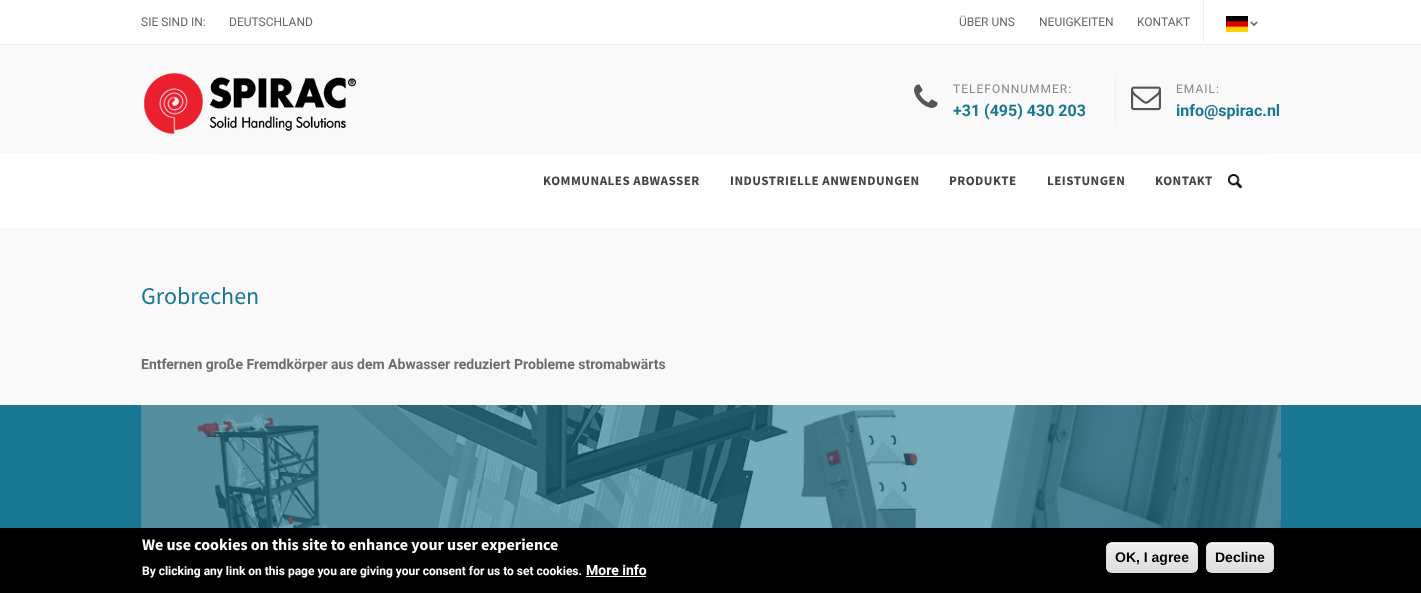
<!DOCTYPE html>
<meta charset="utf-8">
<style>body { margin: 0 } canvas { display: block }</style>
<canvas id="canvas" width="1421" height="593"></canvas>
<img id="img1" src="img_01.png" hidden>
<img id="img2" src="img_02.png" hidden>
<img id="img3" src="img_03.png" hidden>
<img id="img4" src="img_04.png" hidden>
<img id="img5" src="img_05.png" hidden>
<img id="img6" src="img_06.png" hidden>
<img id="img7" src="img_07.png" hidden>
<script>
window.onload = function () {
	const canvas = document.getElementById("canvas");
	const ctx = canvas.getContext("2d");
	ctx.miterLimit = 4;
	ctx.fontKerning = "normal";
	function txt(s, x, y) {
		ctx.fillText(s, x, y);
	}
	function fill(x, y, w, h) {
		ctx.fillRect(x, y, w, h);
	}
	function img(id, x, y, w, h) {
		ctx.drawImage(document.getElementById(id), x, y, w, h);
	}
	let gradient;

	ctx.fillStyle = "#FFFFFF";
	fill(0, 0, 1421, 593);
	ctx.fillStyle = "#EEEEEE";
	fill(0, 44, 1421, 1);
	fill(1203, 0, 1, 44);
	img("img1", 1226, 16, 22, 16);
	img("img2", 1250, 21, 8, 5);
	ctx.fillStyle = "#F9F9F9";
	fill(0, 45, 1421, 108);
	img("img3", 144, 73, 212, 61);
	img("img4", 914, 84, 24, 24);
	ctx.fillStyle = "#EEEEEE";
	fill(1115, 75, 1, 48);
	img("img5", 1131, 86, 30, 25);
	ctx.fillStyle = "#F5F5F5";
	fill(156, 153, 1110, 1);
	img("img6", 1228, 174, 14, 15);
	ctx.fillStyle = "#F9F9F9";
	fill(0, 228, 1421, 177);
	ctx.fillStyle = "#197793";
	fill(0, 405, 1421, 123);
	img("img7", 141, 405, 1140, 123);
	ctx.fillStyle = "#000000";
	fill(0, 528, 1421, 65);
	ctx.fillStyle = "#FFFFFF";
	fill(586, 576, 60, 1);
	ctx.save();
	ctx.beginPath();
	ctx.roundRect(1106, 542, 92, 31, 6);
	ctx.clip();
	gradient = ctx.createLinearGradient(1152, 543, 1152, 572);
	gradient.addColorStop(0.05, "#EDEDED");
	gradient.addColorStop(1, "#DFDFDF");
	ctx.fillStyle = gradient;
	fill(1106, 543, 92, 29);
	ctx.restore();
	ctx.beginPath();
	ctx.moveTo(1112, 544);
	ctx.lineTo(1192, 544);
	ctx.bezierCurveTo(1195, 544, 1197, 546, 1197, 549);
	ctx.bezierCurveTo(1197, 540, 1184, 543, 1179, 543);
	ctx.lineTo(1125, 543);
	ctx.bezierCurveTo(1120, 543, 1107, 540, 1107, 549);
	ctx.bezierCurveTo(1107, 546, 1109, 544, 1112, 544);
	ctx.closePath();
	ctx.fill();
	ctx.beginPath();
	ctx.roundRect(1106.5, 542.5, 91, 30, 5.5);
	ctx.strokeStyle = "#DCDCDC";
	ctx.stroke();
	ctx.save();
	ctx.beginPath();
	ctx.roundRect(1206, 542, 68, 31, 6);
	ctx.clip();
	gradient = ctx.createLinearGradient(1240, 543, 1240, 572);
	gradient.addColorStop(0.05, "#EDEDED");
	gradient.addColorStop(1, "#DFDFDF");
	ctx.fillStyle = gradient;
	fill(1206, 543, 68, 29);
	ctx.restore();
	ctx.beginPath();
	ctx.moveTo(1212, 544);
	ctx.lineTo(1268, 544);
	ctx.bezierCurveTo(1271, 544, 1273, 546, 1273, 549);
	ctx.bezierCurveTo(1273, 541, 1265, 543, 1259, 543);
	ctx.lineTo(1221, 543);
	ctx.bezierCurveTo(1215, 543, 1207, 541, 1207, 549);
	ctx.bezierCurveTo(1207, 546, 1209, 544, 1212, 544);
	ctx.closePath();
	ctx.fill();
	ctx.beginPath();
	ctx.roundRect(1206.5, 542.5, 67, 30, 5.5);
	ctx.stroke();
	ctx.font = "12px Roboto";
	ctx.fillStyle = "#666666";
	txt("SIE SIND IN:", 141, 26);
	txt("DEUTSCHLAND", 229, 26);
	txt("ÜBER UNS", 959, 26);
	txt("NEUIGKEITEN", 1039, 26);
	txt("KONTAKT", 1137, 26);
	ctx.letterSpacing = "1px";
	ctx.fillStyle = "#888888";
	txt("TELEFONNUMMER:", 953, 93);
	ctx.letterSpacing = "0px";
	ctx.font = "bold 16px Roboto";
	ctx.fillStyle = "#197793";
	txt("+31 (495) 430 203", 953, 116);
	ctx.letterSpacing = "1px";
	ctx.font = "12px Roboto";
	ctx.fillStyle = "#888888";
	txt("EMAIL:", 1176, 93);
	ctx.letterSpacing = "0px";
	ctx.font = "bold 16px Roboto";
	ctx.fillStyle = "#197793";
	txt("info@spirac.nl", 1176, 116);
	ctx.letterSpacing = "0.5px";
	ctx.font = "bold 13px Source Sans Pro";
	ctx.fillStyle = "#444444";
	txt("KOMMUNALES ABWASSER", 543, 185);
	txt("INDUSTRIELLE ANWENDUNGEN", 730, 185);
	txt("PRODUKTE", 949, 185);
	txt("LEISTUNGEN", 1047, 185);
	txt("KONTAKT", 1155, 185);
	ctx.letterSpacing = "0px";
	ctx.font = "24px Source Sans Pro";
	ctx.fillStyle = "#197793";
	txt("Grobrechen", 141, 304);
	ctx.font = "bold 14px Roboto";
	ctx.fillStyle = "#6D6D6D";
	txt("Entfernen große Fremdkörper aus dem Abwasser reduziert Probleme stromabwärts", 141, 369);
	ctx.font = "bold 16px Source Sans Pro";
	ctx.fillStyle = "#FFFFFF";
	txt("We use cookies on this site to enhance your user experience", 142, 550);
	ctx.font = "bold 12px Roboto";
	txt("By clicking any link on this page you are giving your consent for us to set cookies.", 142, 575);
	ctx.font = "bold 14px Roboto";
	txt("More info", 586, 575);
	ctx.font = "bold 14px Liberation Sans";
	ctx.fillStyle = "#000000";
	txt("OK, I agree", 1115, 562);
	txt("Decline", 1215, 562);
};
</script>
